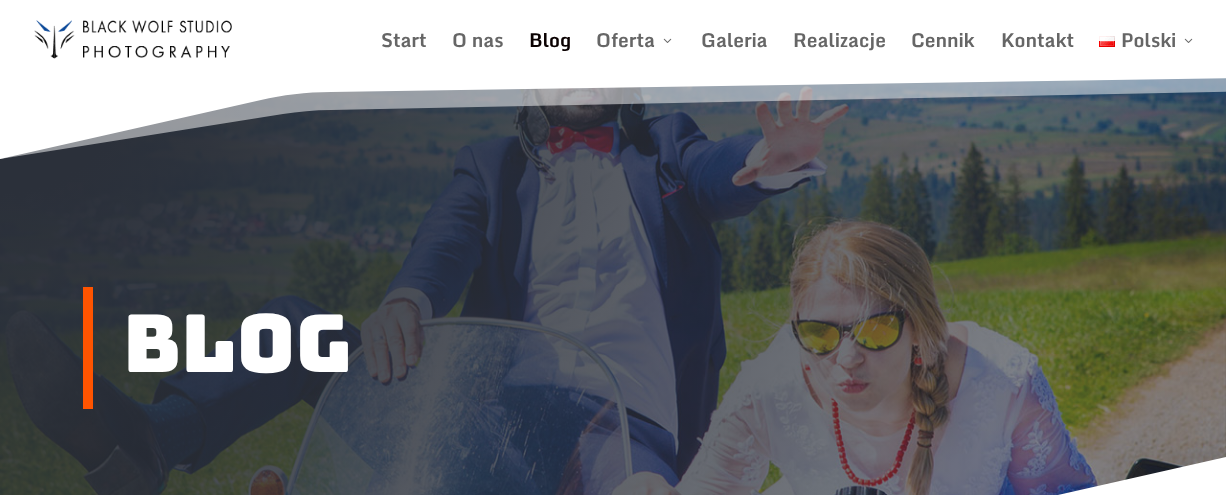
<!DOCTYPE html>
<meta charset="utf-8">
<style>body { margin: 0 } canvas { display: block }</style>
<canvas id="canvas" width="1226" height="495"></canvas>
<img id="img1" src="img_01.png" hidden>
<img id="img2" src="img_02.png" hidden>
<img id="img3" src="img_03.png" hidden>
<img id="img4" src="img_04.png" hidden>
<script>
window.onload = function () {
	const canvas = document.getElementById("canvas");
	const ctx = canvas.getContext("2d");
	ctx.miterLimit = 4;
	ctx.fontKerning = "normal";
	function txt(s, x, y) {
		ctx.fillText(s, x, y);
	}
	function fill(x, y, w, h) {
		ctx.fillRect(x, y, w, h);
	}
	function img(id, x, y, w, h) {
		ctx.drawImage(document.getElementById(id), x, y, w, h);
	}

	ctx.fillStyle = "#FFFFFF";
	fill(0, 0, 1226, 495);
	img("img1", 34, 20, 198, 39);
	img("img2", 663, 38, 9, 5);
	img("img3", 1099, 36, 16, 11);
	img("img2", 1184, 38, 9, 5);
	img("img4", 0, 78, 1226, 417);
	ctx.fillStyle = "rgba(255, 255, 255, 0.5)";
	ctx.beginPath();
	ctx.moveTo(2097, 74);
	ctx.lineTo(331, 110);
	ctx.bezierCurveTo(314, 110, 298, 112, 283, 114);
	ctx.lineTo(0, 159);
	ctx.lineTo(0, 59);
	ctx.lineTo(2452, 59);
	ctx.lineTo(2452, 159);
	ctx.lineTo(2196, 86);
	ctx.bezierCurveTo(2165, 78, 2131, 73, 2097, 74);
	ctx.closePath();
	ctx.fill();
	ctx.fillStyle = "#FFFFFF";
	ctx.beginPath();
	ctx.moveTo(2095, 65);
	ctx.lineTo(331, 92);
	ctx.bezierCurveTo(306, 92, 282, 95, 261, 100);
	ctx.lineTo(0, 159);
	ctx.lineTo(0, 59);
	ctx.lineTo(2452, 59);
	ctx.lineTo(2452, 159);
	ctx.lineTo(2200, 79);
	ctx.bezierCurveTo(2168, 69, 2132, 64, 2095, 65);
	ctx.closePath();
	ctx.fill();
	ctx.fillStyle = "#FF5400";
	fill(83, 287, 10, 122);
	ctx.fillStyle = "#FFFFFF";
	ctx.beginPath();
	ctx.moveTo(-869, 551);
	ctx.lineTo(895, 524);
	ctx.bezierCurveTo(920, 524, 944, 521, 965, 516);
	ctx.lineTo(1226, 457);
	ctx.lineTo(1226, 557);
	ctx.lineTo(-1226, 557);
	ctx.lineTo(-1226, 457);
	ctx.lineTo(-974, 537);
	ctx.bezierCurveTo(-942, 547, -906, 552, -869, 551);
	ctx.closePath();
	ctx.fill();
	ctx.font = "bold 19px Monda";
	ctx.fillStyle = "#666666";
	txt("Start", 381, 47);
	txt("O nas", 452, 47);
	ctx.fillStyle = "#0A0101";
	txt("Blog", 529, 47);
	ctx.fillStyle = "#666666";
	txt("Oferta", 596, 47);
	txt("Galeria", 701, 47);
	txt("Realizacje", 793, 47);
	txt("Cennik", 911, 47);
	txt("Kontakt", 1001, 47);
	txt("Polski", 1121, 47);
	ctx.font = "80px Bungee";
	ctx.fillStyle = "#FFFFFF";
	txt("blog", 123, 372);
};
</script>
